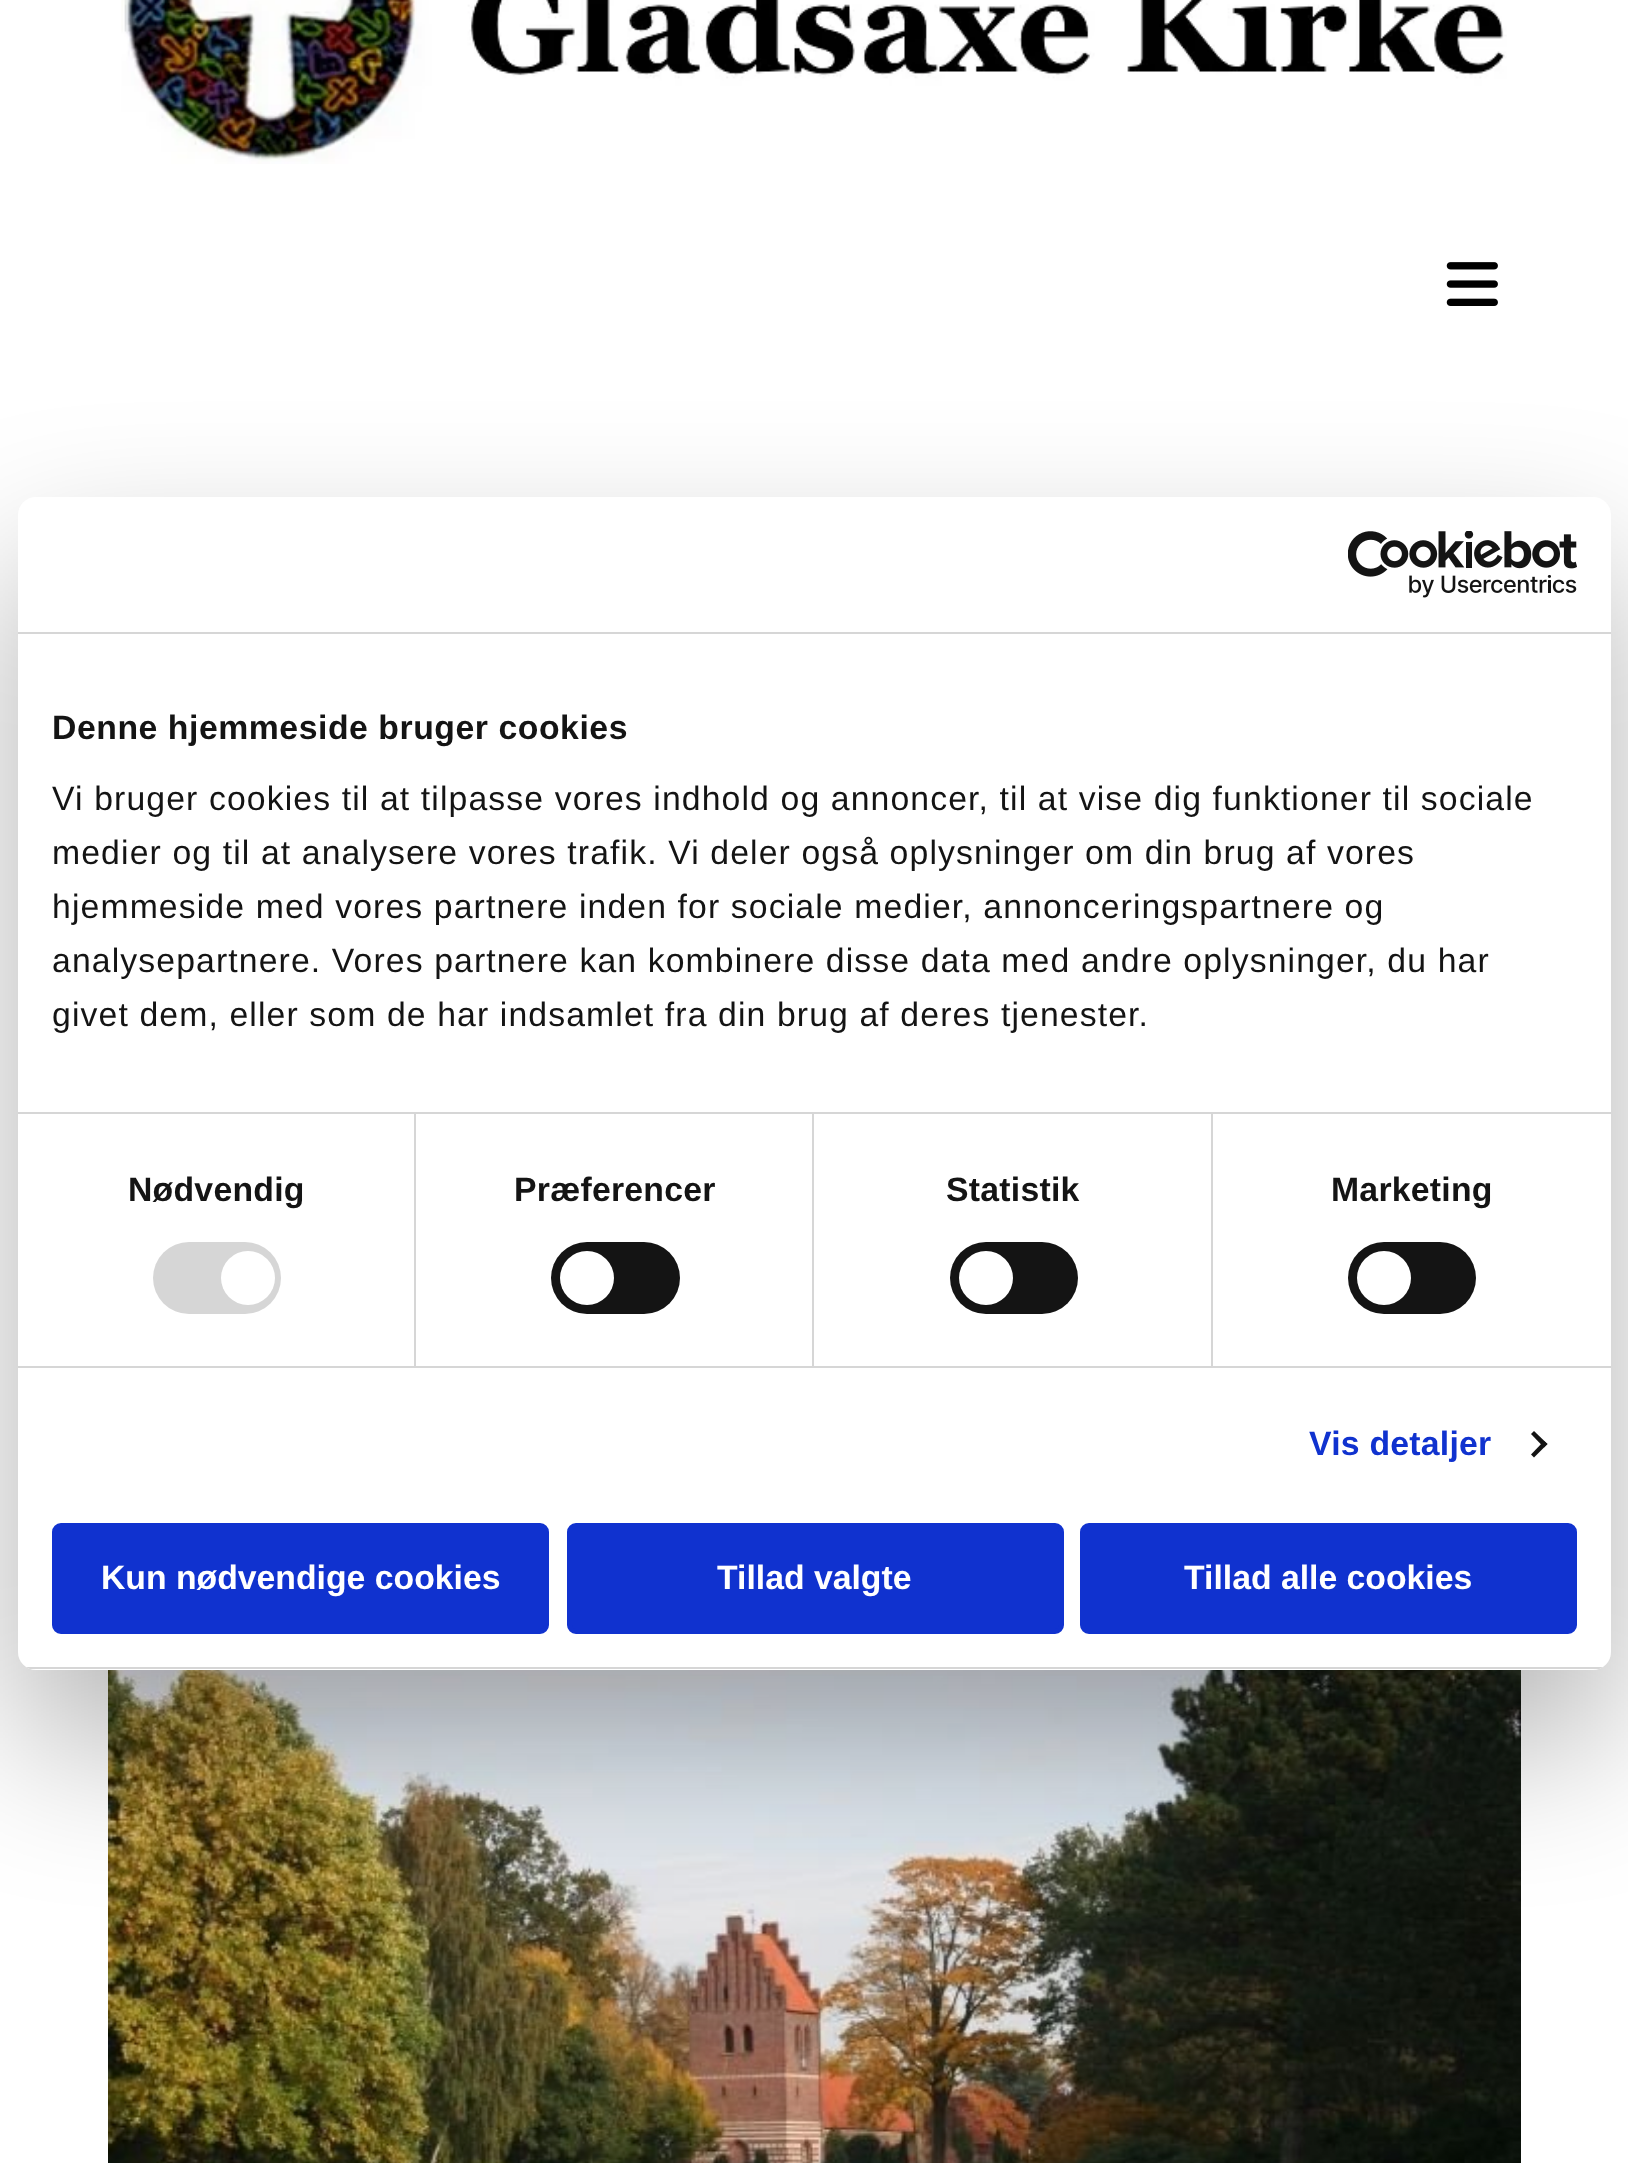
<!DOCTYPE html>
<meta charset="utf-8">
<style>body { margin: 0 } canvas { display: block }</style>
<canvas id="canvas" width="1628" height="2163"></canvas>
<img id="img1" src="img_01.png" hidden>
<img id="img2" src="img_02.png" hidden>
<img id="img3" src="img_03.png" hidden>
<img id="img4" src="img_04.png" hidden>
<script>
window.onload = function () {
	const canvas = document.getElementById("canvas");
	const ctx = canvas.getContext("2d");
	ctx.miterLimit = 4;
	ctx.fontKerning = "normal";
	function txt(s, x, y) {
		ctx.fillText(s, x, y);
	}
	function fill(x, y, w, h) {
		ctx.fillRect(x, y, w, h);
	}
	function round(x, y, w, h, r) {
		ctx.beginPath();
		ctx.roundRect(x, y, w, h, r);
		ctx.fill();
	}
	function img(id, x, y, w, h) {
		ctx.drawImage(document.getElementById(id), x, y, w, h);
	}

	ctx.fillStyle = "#FFFFFF";
	fill(0, 0, 1628, 2163);
	img("img1", 121, 0, 1386, 164);
	img("img2", 1446, 262, 52, 44);
	img("img3", 108, 1670, 1413, 493);
	ctx.fillStyle = "rgba(0, 0, 0, 0.3)";
	ctx.filter = "blur(76.5px)";
	ctx.beginPath();
	ctx.roundRect(18, 569, 1593, 1173, 18);
	ctx.fill();
	ctx.filter = "none";
	ctx.fillStyle = "#FFFFFF";
	round(18, 497, 1593, 1173, 18);
	ctx.fillStyle = "#D6D6D6";
	fill(18, 632, 1593, 2);
	img("img4", 1348, 531, 229, 67);
	fill(18, 1112, 1593, 2);
	fill(18, 1366, 1593, 2);
	fill(414, 1114, 2, 252);
	round(153, 1242, 128, 72, 36);
	ctx.fillStyle = "#FFFFFF";
	ctx.beginPath();
	ctx.arc(248, 1278, 27, 0, Math.PI * 2);
	ctx.fill();
	ctx.fillStyle = "#D6D6D6";
	fill(812, 1114, 2, 252);
	ctx.fillStyle = "#141414";
	round(551, 1242, 129, 72, 36);
	ctx.fillStyle = "#FFFFFF";
	ctx.beginPath();
	ctx.arc(587, 1278, 27, 0, Math.PI * 2);
	ctx.fill();
	ctx.fillStyle = "#D6D6D6";
	fill(1211, 1114, 2, 252);
	ctx.fillStyle = "#141414";
	round(950, 1242, 128, 72, 36);
	ctx.fillStyle = "#FFFFFF";
	ctx.beginPath();
	ctx.arc(986, 1278, 27, 0, Math.PI * 2);
	ctx.fill();
	ctx.fillStyle = "#141414";
	round(1348, 1242, 128, 72, 36);
	ctx.fillStyle = "#FFFFFF";
	ctx.beginPath();
	ctx.arc(1384, 1278, 27, 0, Math.PI * 2);
	ctx.fill();
	ctx.fillStyle = "#141414";
	ctx.beginPath();
	ctx.moveTo(1534, 1431);
	ctx.lineTo(1547.5, 1444);
	ctx.lineTo(1544, 1447.5);
	ctx.lineTo(1531, 1434);
	ctx.closePath();
	ctx.fill();
	ctx.beginPath();
	ctx.moveTo(1544, 1441);
	ctx.lineTo(1547.5, 1444);
	ctx.lineTo(1534, 1457.5);
	ctx.lineTo(1531, 1454.5);
	ctx.closePath();
	ctx.fill();
	ctx.save();
	ctx.beginPath();
	ctx.roundRect(18, 497, 1593, 1173, 18);
	ctx.clip();
	ctx.fillStyle = "#D6D6D6";
	fill(18, 1667, 1593, 2);
	ctx.restore();
	ctx.fillStyle = "#1032CF";
	ctx.beginPath();
	ctx.roundRect(54.5, 1525.5, 492, 106, 6.5);
	ctx.fill();
	ctx.strokeStyle = "#1032CF";
	ctx.lineWidth = 5;
	ctx.stroke();
	ctx.beginPath();
	ctx.roundRect(569.5, 1525.5, 492, 106, 6.5);
	ctx.fill();
	ctx.stroke();
	ctx.beginPath();
	ctx.roundRect(1082.5, 1525.5, 492, 106, 6.5);
	ctx.fill();
	ctx.stroke();
	ctx.letterSpacing = "0.55px";
	ctx.font = "bold 33.75px Liberation Sans";
	ctx.fillStyle = "#141414";
	txt("Denne hjemmeside bruger cookies", 52, 739);
	ctx.letterSpacing = "1.12px";
	ctx.font = "33.75px Liberation Sans";
	txt("Vi bruger cookies til at tilpasse vores indhold og annoncer, til at vise dig funktioner til sociale", 52, 810);
	txt("medier og til at analysere vores trafik. Vi deler også oplysninger om din brug af vores", 52, 864);
	txt("hjemmeside med vores partnere inden for sociale medier, annonceringspartnere og", 52, 918);
	txt("analysepartnere. Vores partnere kan kombinere disse data med andre oplysninger, du har", 52, 972);
	txt("givet dem, eller som de har indsamlet fra din brug af deres tjenester.", 52, 1026);
	ctx.letterSpacing = "0.25px";
	ctx.font = "bold 33.75px Liberation Sans";
	txt("Nødvendig", 128, 1201);
	txt("Præferencer", 514, 1201);
	txt("Statistik", 946, 1201);
	txt("Marketing", 1331, 1201);
	ctx.fillStyle = "#1032CF";
	txt("Vis detaljer", 1309, 1455);
	ctx.letterSpacing = "0px";
	ctx.fillStyle = "#FFFFFF";
	txt("Kun nødvendige cookies", 101, 1589);
	txt("Tillad valgte", 717, 1589);
	txt("Tillad alle cookies", 1184, 1589);
};
</script>
